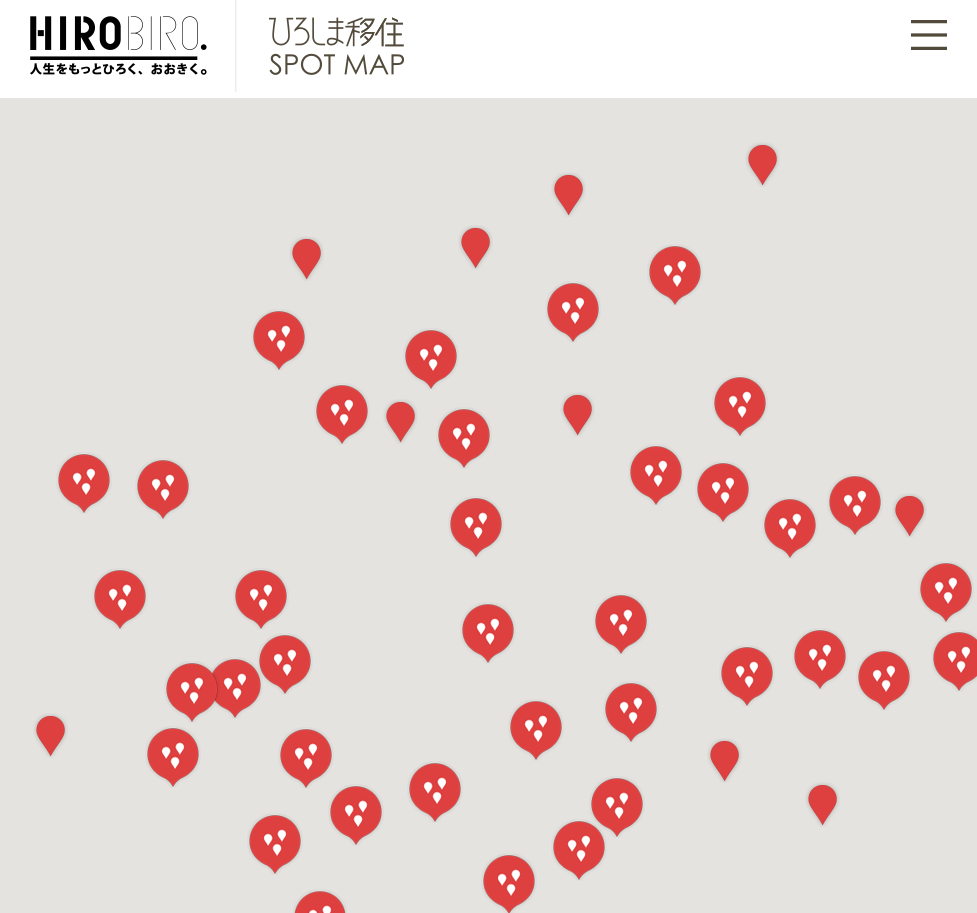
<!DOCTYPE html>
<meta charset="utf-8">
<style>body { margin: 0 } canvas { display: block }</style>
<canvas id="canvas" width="977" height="913"></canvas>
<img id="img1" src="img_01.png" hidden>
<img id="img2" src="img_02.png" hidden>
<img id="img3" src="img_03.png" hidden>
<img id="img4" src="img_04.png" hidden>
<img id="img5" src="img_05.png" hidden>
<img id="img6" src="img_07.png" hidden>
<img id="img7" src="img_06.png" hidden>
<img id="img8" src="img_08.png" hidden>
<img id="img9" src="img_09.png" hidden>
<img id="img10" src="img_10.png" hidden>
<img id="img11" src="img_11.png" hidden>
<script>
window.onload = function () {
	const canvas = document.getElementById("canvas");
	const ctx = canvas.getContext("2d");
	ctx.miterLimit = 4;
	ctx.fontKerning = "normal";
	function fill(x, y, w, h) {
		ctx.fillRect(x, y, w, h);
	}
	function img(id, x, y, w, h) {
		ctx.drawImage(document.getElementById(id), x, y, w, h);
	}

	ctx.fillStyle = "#FFFFFF";
	fill(0, 0, 977, 913);
	img("img1", 30, 0, 207, 92);
	img("img2", 269, 17, 135, 58);
	img("img3", 911, 20, 36, 30);
	ctx.fillStyle = "#E5E3DF";
	fill(0, 98, 977, 815);
	img("img4", 745, 142, 35, 45);
	img("img4", 551, 172, 35, 45);
	img("img4", 289, 236, 35, 45);
	img("img4", 458, 225, 35, 45);
	img("img4", 383, 399, 35, 45);
	img("img4", 560, 392, 35, 45);
	img("img4", 892, 493, 35, 45);
	img("img4", 33, 713, 35, 45);
	img("img4", 707, 738, 35, 45);
	img("img4", 805, 782, 35, 45);
	img("img5", 251, 309, 56, 62);
	img("img5", 403, 328, 56, 62);
	img("img5", 545, 281, 56, 62);
	img("img5", 647, 244, 56, 62);
	img("img5", 56, 452, 56, 62);
	img("img5", 135, 458, 56, 62);
	img("img5", 314, 383, 56, 62);
	img("img5", 436, 407, 56, 62);
	img("img5", 628, 444, 56, 62);
	img("img5", 712, 375, 56, 62);
	img("img5", 448, 496, 56, 62);
	img("img5", 695, 461, 56, 62);
	img("img5", 762, 497, 56, 62);
	img("img5", 827, 474, 56, 62);
	img("img5", 92, 568, 56, 62);
	img("img5", 233, 568, 56, 62);
	img("img5", 460, 602, 56, 62);
	img("img5", 593, 593, 56, 62);
	img("img5", 792, 628, 56, 62);
	img("img5", 918, 561, 56, 62);
	img("img5", 257, 633, 56, 62);
	img("img6", 210, 657, 53, 62);
	img("img7", 164, 661, 56, 62);
	img("img5", 508, 699, 56, 62);
	img("img5", 603, 681, 56, 62);
	img("img5", 719, 645, 56, 62);
	img("img5", 856, 649, 56, 62);
	img("img8", 931, 630, 46, 62);
	img("img5", 145, 726, 56, 62);
	img("img5", 247, 813, 56, 62);
	img("img5", 278, 727, 56, 62);
	img("img5", 328, 784, 56, 62);
	img("img5", 407, 761, 56, 62);
	img("img9", 481, 853, 56, 60);
	img("img5", 551, 819, 56, 62);
	img("img10", 589, 776, 56, 62);
	img("img11", 293, 889, 54, 24);
};
</script>
